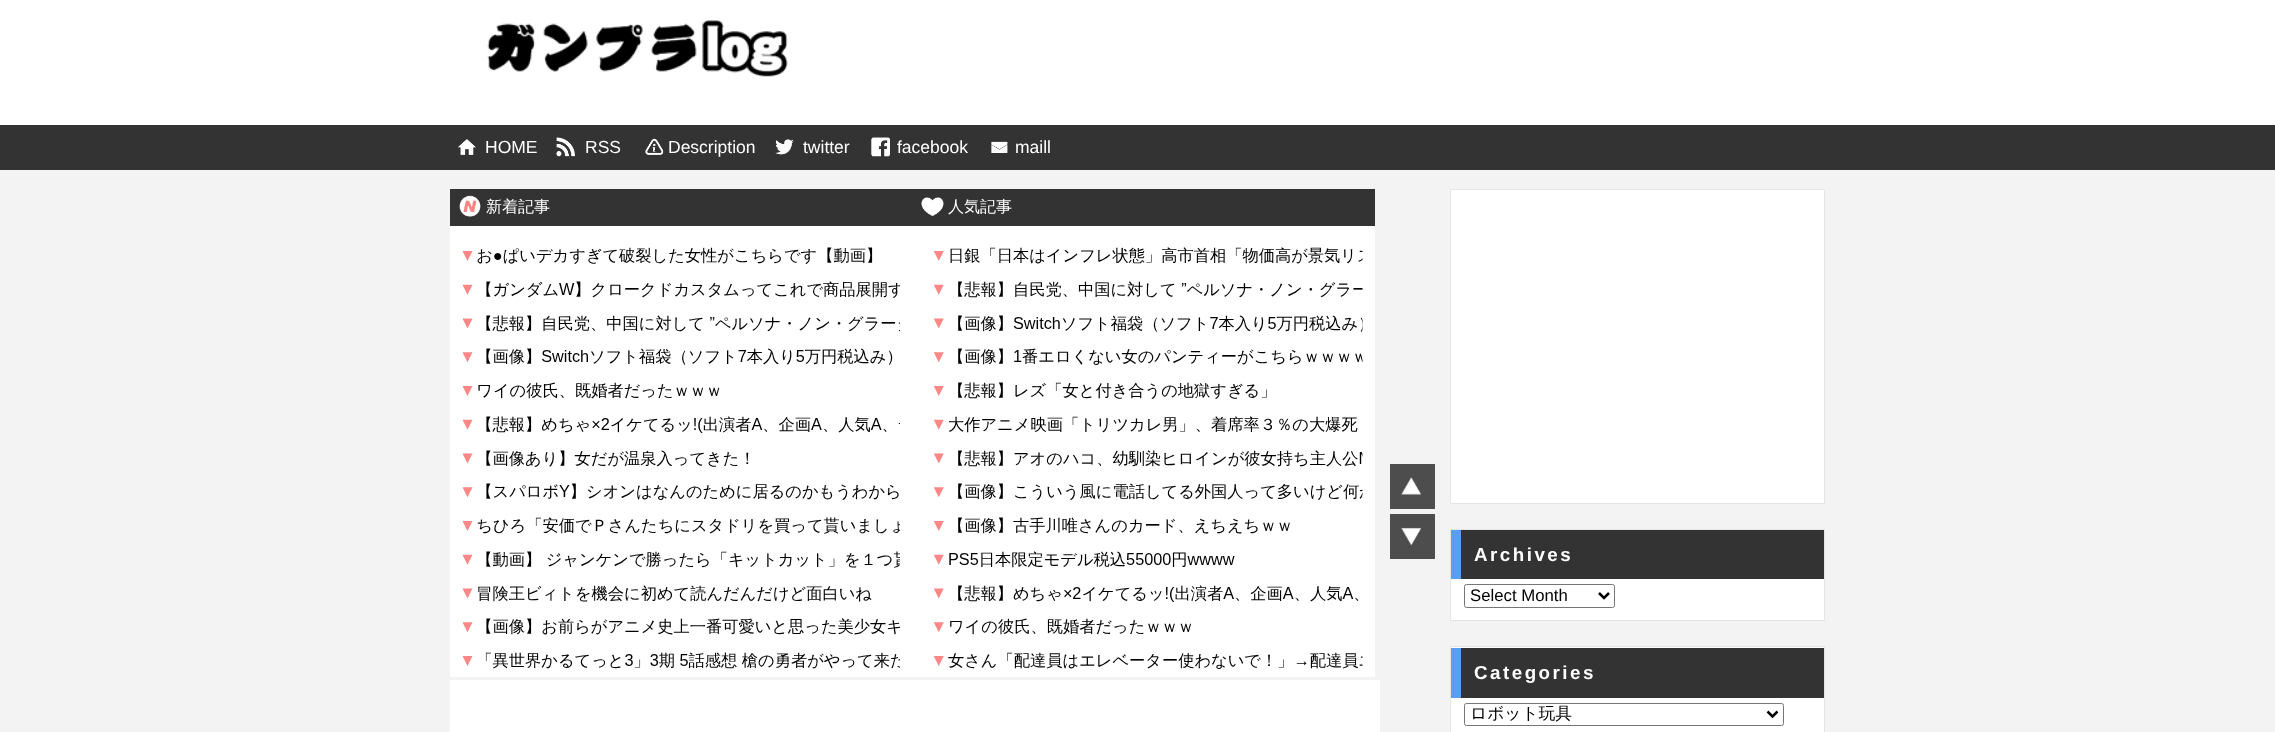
<!DOCTYPE html>
<meta charset="utf-8">
<style>body { margin: 0 } canvas { display: block }</style>
<canvas id="canvas" width="2275" height="732"></canvas>
<img id="img1" src="img_01.png" hidden>
<img id="img2" src="img_02.png" hidden>
<img id="img3" src="img_03.png" hidden>
<img id="img4" src="img_04.png" hidden>
<img id="img5" src="img_05.png" hidden>
<img id="img6" src="img_06.png" hidden>
<img id="img7" src="img_07.png" hidden>
<img id="img8" src="img_08.png" hidden>
<img id="img9" src="img_09.png" hidden>
<img id="img10" src="img_10.png" hidden>
<img id="img11" src="img_11.png" hidden>
<img id="img12" src="img_12.png" hidden>
<script>
window.onload = function () {
	const canvas = document.getElementById("canvas");
	const ctx = canvas.getContext("2d");
	ctx.miterLimit = 4;
	ctx.fontKerning = "normal";
	function txt(s, x, y) {
		ctx.fillText(s, x, y);
	}
	function fill(x, y, w, h) {
		ctx.fillRect(x, y, w, h);
	}
	function img(id, x, y, w, h) {
		ctx.drawImage(document.getElementById(id), x, y, w, h);
	}

	ctx.fillStyle = "#F3F3F3";
	fill(0, 0, 2275, 732);
	ctx.fillStyle = "#FFFFFF";
	fill(0, 0, 2275, 125);
	img("img1", 487, 20, 301, 57);
	ctx.fillStyle = "#333333";
	fill(0, 125, 2275, 45);
	img("img2", 457, 139, 20, 16);
	img("img3", 556, 137, 19, 20);
	img("img4", 645, 138, 19, 17);
	img("img5", 775, 139, 19, 16);
	img("img6", 871, 137, 19, 20);
	img("img7", 991, 141, 17, 12);
	fill(450, 189, 925, 37);
	img("img8", 459, 195, 22, 22);
	img("img9", 921, 197, 23, 20);
	img("img10", 450, 226, 925, 451);
	ctx.fillStyle = "#FFFFFF";
	fill(450, 680, 930, 52);
	ctx.fillStyle = "#4D4D4D";
	fill(1390, 464, 45, 45);
	img("img11", 1401, 477, 20, 18);
	fill(1390, 514, 45, 45);
	img("img12", 1401, 527, 20, 19);
	ctx.fillStyle = "#FFFFFF";
	ctx.beginPath();
	ctx.rect(1450.5, 189.5, 374, 314);
	ctx.fill();
	ctx.strokeStyle = "#E4E4E4";
	ctx.stroke();
	fill(1451, 579, 373, 41);
	ctx.strokeRect(1450.5, 529.5, 374, 91);
	ctx.fillStyle = "#333333";
	fill(1461, 530, 363, 49);
	ctx.fillStyle = "#5A9EF3";
	fill(1451, 530, 10, 49);
	ctx.beginPath();
	ctx.roundRect(1464.5, 584.5, 150, 23, 2);
	ctx.strokeStyle = "#767676";
	ctx.stroke();
	ctx.beginPath();
	ctx.moveTo(1599, 593);
	ctx.lineTo(1604, 598);
	ctx.lineTo(1609, 593);
	ctx.strokeStyle = "#000000";
	ctx.lineWidth = 2.5;
	ctx.stroke();
	ctx.fillStyle = "#FFFFFF";
	ctx.beginPath();
	ctx.rect(1450.5, 646.5, 374, 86);
	ctx.fill();
	ctx.strokeStyle = "#E4E4E4";
	ctx.lineWidth = 1;
	ctx.stroke();
	ctx.fillStyle = "#333333";
	fill(1461, 648, 363, 50);
	ctx.fillStyle = "#5A9EF3";
	fill(1451, 648, 10, 50);
	ctx.beginPath();
	ctx.roundRect(1464.5, 703.5, 319, 22, 2);
	ctx.strokeStyle = "#767676";
	ctx.stroke();
	ctx.beginPath();
	ctx.moveTo(1767.5, 711.5);
	ctx.lineTo(1772.5, 716.5);
	ctx.lineTo(1777.5, 711.5);
	ctx.strokeStyle = "#000000";
	ctx.lineWidth = 2.5;
	ctx.stroke();
	ctx.font = "17.5px Liberation Sans";
	ctx.fillStyle = "#FFFFFF";
	txt("HOME", 485, 153);
	txt("RSS", 585, 153);
	txt("Description", 668, 153);
	txt("twitter", 803, 153);
	txt("facebook", 897, 153);
	txt("maill", 1015, 153);
	ctx.font = "500 16px WenQuanYi Zen Hei";
	txt("新着記事", 486, 212);
	txt("人気記事", 948, 212);
	ctx.letterSpacing = "2.5px";
	ctx.font = "bold 18.75px Liberation Sans";
	txt("Archives", 1474, 561);
	ctx.letterSpacing = "0px";
	ctx.font = "16.75px Liberation Sans";
	ctx.fillStyle = "#000000";
	txt("Select Month", 1470, 601);
	ctx.letterSpacing = "2.5px";
	ctx.font = "bold 18.75px Liberation Sans";
	ctx.fillStyle = "#FFFFFF";
	txt("Categories", 1474, 679);
	ctx.letterSpacing = "0px";
	ctx.font = "500 16.75px WenQuanYi Zen Hei";
	ctx.fillStyle = "#000000";
	txt("ロボット玩具", 1470, 719);
};
</script>
